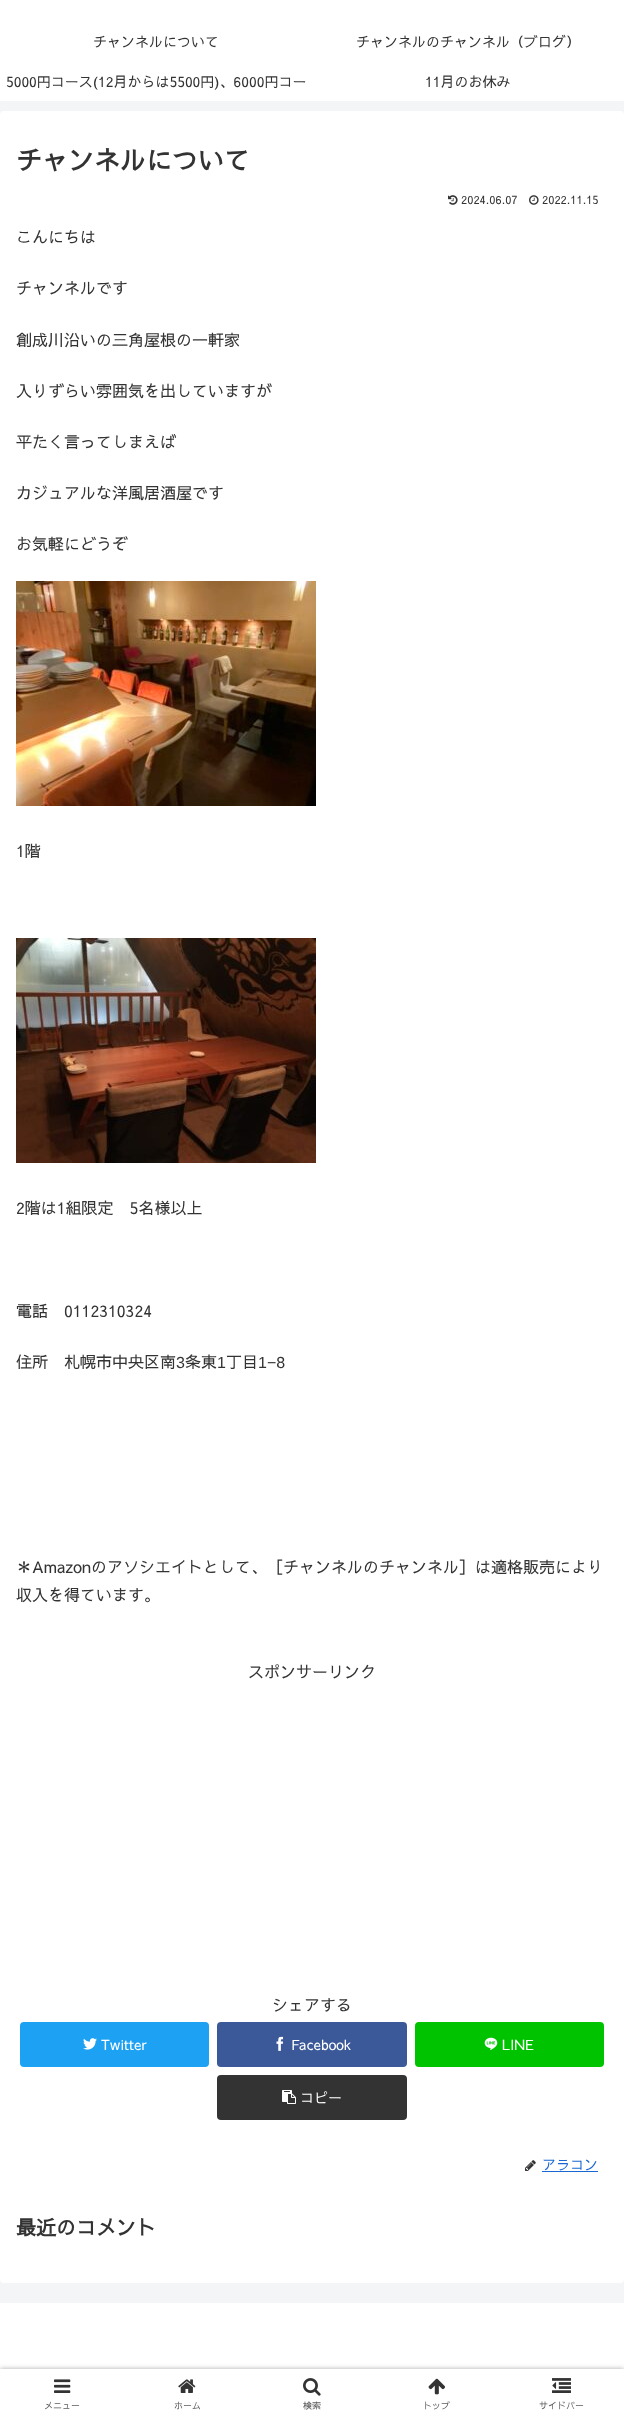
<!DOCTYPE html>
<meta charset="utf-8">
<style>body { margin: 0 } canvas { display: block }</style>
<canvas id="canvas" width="624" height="2419"></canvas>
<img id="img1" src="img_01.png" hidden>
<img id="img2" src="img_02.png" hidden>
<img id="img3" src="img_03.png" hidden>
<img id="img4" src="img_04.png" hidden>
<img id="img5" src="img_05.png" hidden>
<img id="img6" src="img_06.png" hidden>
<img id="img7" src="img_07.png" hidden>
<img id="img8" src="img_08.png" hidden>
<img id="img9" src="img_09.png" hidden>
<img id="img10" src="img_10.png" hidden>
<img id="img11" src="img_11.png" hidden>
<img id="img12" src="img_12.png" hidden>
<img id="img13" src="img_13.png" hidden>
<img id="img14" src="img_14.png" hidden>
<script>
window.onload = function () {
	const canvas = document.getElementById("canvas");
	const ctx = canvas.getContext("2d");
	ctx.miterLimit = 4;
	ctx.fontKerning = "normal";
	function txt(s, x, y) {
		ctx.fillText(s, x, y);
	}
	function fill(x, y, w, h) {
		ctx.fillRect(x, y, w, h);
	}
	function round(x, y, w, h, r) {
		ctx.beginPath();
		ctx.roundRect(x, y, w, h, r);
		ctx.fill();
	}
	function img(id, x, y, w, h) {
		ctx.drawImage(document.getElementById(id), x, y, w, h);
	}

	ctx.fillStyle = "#F4F5F7";
	fill(0, 0, 624, 2419);
	ctx.fillStyle = "#FFFFFF";
	fill(0, 0, 624, 101);
	round(0, 111, 624, 2172, 4);
	img("img1", 448, 195, 10, 10);
	img("img2", 529, 195, 10, 10);
	img("img3", 16, 581, 300, 225);
	img("img4", 16, 938, 300, 225);
	ctx.fillStyle = "#1DA1F2";
	round(20, 2022, 189, 45, 4);
	img("img5", 83, 2038, 14, 12);
	ctx.fillStyle = "#3B5998";
	round(217, 2022, 190, 45, 4);
	img("img6", 276, 2036, 8, 15);
	ctx.fillStyle = "#00C300";
	round(415, 2022, 189, 45, 4);
	img("img7", 484, 2037, 14, 13);
	ctx.fillStyle = "#333333";
	round(217, 2075, 190, 45, 4);
	img("img8", 282, 2090, 14, 14);
	img("img9", 525, 2160, 11, 11);
	ctx.fillStyle = "#1967D2";
	fill(542, 2171, 56, 1);
	ctx.fillStyle = "#FFFFFF";
	fill(0, 2303, 624, 66);
	ctx.fillStyle = "#A9A9A9";
	ctx.filter = "blur(2.5px)";
	ctx.beginPath();
	ctx.rect(0, 2369, 624, 50);
	ctx.fill();
	ctx.filter = "none";
	ctx.fillStyle = "#FFFFFF";
	fill(0, 2369, 624, 50);
	img("img10", 54, 2379, 17, 14);
	img("img11", 178, 2379, 18, 14);
	img("img12", 303, 2378, 18, 18);
	img("img13", 428, 2378, 17, 17);
	img("img14", 552, 2378, 19, 15);
	ctx.font = "14px Sawarabi Gothic";
	ctx.fillStyle = "#333333";
	txt("チャンネルについて", 93, 47);
	txt("チャンネルのチャンネル（ブログ）", 356, 47);
	txt("5000円コース(12月からは5500円)、6000円コー", 6, 87);
	txt("11月のお休み", 425, 87);
	ctx.font = "bold 26px Sawarabi Gothic";
	txt("チャンネルについて", 16, 170);
	ctx.font = "11.25px Sawarabi Gothic";
	txt("2024.06.07", 461, 204);
	txt("2022.11.15", 542, 204);
	ctx.font = "16px Sawarabi Gothic";
	txt("こんにちは", 16, 243);
	txt("チャンネルです", 16, 294);
	txt("創成川沿いの三角屋根の一軒家", 16, 346);
	txt("入りずらい雰囲気を出していますが", 16, 397);
	txt("平たく言ってしまえば", 16, 448);
	txt("カジュアルな洋風居酒屋です", 16, 499);
	txt("お気軽にどうぞ", 16, 550);
	txt("1階", 16, 857);
	txt("2階は1組限定　5名様以上", 16, 1214);
	txt("電話　0112310324", 16, 1317);
	txt("住所　札幌市中央区南", 16, 1368);
	ctx.font = "16px Liberation Sans";
	txt("3", 176, 1368);
	ctx.font = "16px Sawarabi Gothic";
	txt("条東", 185, 1368);
	ctx.font = "16px Liberation Sans";
	txt("1", 217, 1368);
	ctx.font = "16px Sawarabi Gothic";
	txt("丁目", 226, 1368);
	ctx.font = "16px Liberation Sans";
	txt("1−8", 258, 1368);
	ctx.font = "16px Sawarabi Gothic";
	txt("＊Amazonのアソシエイトとして、［チャンネルのチャンネル］は適格販売により", 16, 1573);
	txt("収入を得ています。", 16, 1601);
	txt("スポンサーリンク", 248, 1678);
	txt("シェアする", 272, 2011);
	ctx.font = "14px Sawarabi Gothic";
	ctx.fillStyle = "#FFFFFF";
	txt("Twitter", 101, 2050);
	txt("Facebook", 291, 2050);
	txt("LINE", 502, 2050);
	txt("コピー", 300, 2103);
	ctx.fillStyle = "#1967D2";
	txt("アラコン", 542, 2170);
	ctx.font = "bold 20px Sawarabi Gothic";
	ctx.fillStyle = "#333333";
	txt("最近のコメント", 16, 2235);
	ctx.font = "9px Sawarabi Gothic";
	ctx.fillStyle = "#5C5C5C";
	txt("メニュー", 44, 2409);
	txt("ホーム", 174, 2409);
	txt("検索", 303, 2409);
	txt("トップ", 423, 2409);
	txt("サイドバー", 539, 2409);
};
</script>
